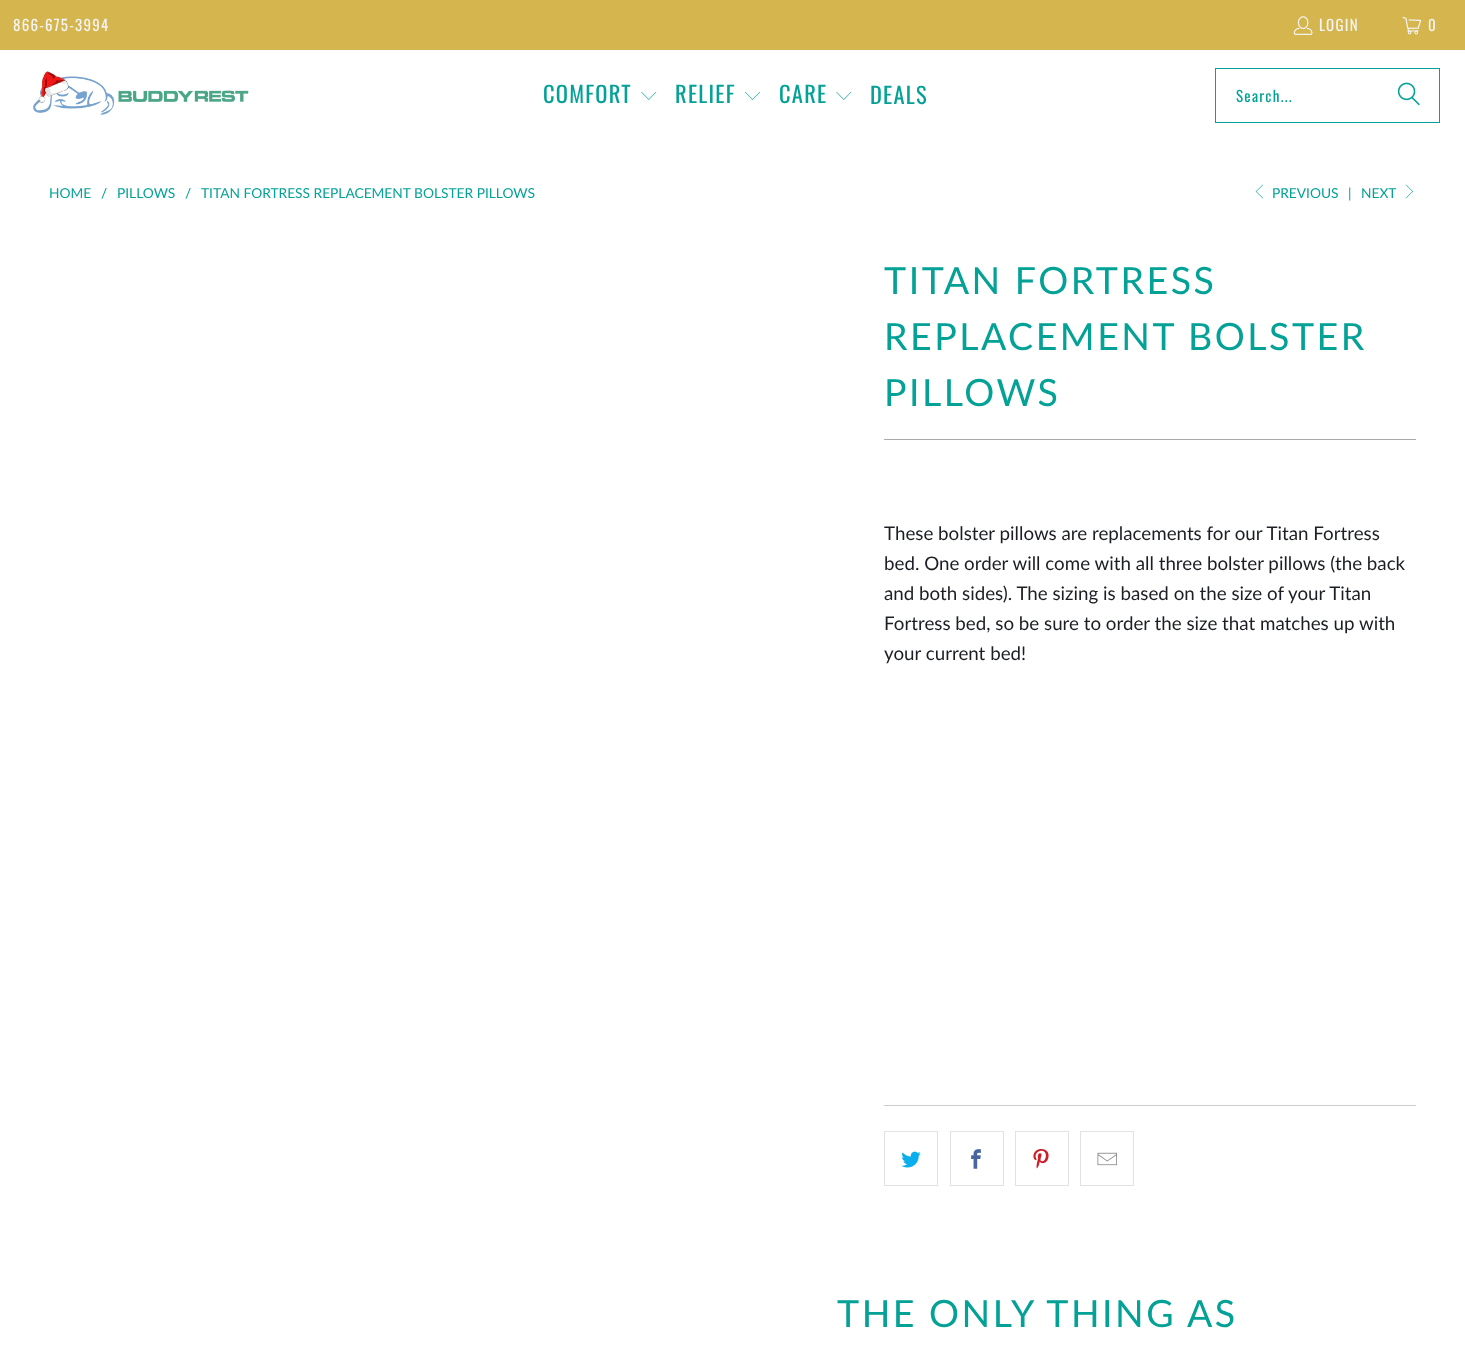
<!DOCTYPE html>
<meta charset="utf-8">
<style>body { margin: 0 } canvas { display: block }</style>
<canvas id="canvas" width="1465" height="1363"></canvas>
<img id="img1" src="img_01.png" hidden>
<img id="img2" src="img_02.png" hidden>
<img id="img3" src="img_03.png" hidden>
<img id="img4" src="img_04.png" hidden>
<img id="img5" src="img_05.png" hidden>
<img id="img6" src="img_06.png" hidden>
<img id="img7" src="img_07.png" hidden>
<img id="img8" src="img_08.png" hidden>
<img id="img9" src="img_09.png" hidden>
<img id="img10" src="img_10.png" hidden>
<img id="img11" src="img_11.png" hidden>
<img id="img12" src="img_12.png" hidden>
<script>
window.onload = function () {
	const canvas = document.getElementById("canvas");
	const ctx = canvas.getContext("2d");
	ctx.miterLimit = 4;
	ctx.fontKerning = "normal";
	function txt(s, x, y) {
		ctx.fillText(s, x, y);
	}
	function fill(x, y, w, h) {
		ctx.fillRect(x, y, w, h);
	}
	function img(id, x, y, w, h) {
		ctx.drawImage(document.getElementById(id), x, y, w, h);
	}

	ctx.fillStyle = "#FFFFFF";
	fill(0, 0, 1465, 1363);
	ctx.fillStyle = "#D5B54D";
	fill(0, 0, 1465, 50);
	img("img1", 1293, 16, 20, 19);
	img("img2", 1402, 16, 20, 19);
	img("img3", 33, 71, 216, 44);
	img("img4", 641, 92, 16, 8);
	img("img5", 745, 92, 15, 8);
	img("img4", 836, 92, 16, 8);
	ctx.strokeStyle = "#03A196";
	ctx.strokeRect(1215.5, 68.5, 224, 54);
	img("img6", 1397, 82, 23, 24);
	img("img7", 1255, 184, 8, 15);
	img("img8", 1405, 184, 8, 15);
	ctx.fillStyle = "#AAAAAA";
	fill(884, 439, 532, 1);
	ctx.fillStyle = "#CCCCCC";
	fill(884, 1105, 532, 1);
	ctx.strokeStyle = "#E2E2E2";
	ctx.strokeRect(884.5, 1131.5, 53, 54);
	img("img9", 901, 1151, 20, 17);
	ctx.strokeRect(950.5, 1131.5, 53, 54);
	img("img10", 971, 1149, 10, 20);
	ctx.strokeRect(1015.5, 1131.5, 53, 54);
	img("img11", 1033, 1149, 16, 20);
	ctx.strokeRect(1080.5, 1131.5, 53, 54);
	img("img12", 1097, 1152, 20, 14);
	ctx.letterSpacing = "1.25px";
	ctx.font = "15px Oswald";
	ctx.fillStyle = "#F4F4F4";
	txt("866-675-3994", 13, 31);
	txt("LOGIN", 1319, 31);
	txt("0", 1428, 31);
	ctx.font = "22.5px Oswald";
	ctx.fillStyle = "#03A196";
	txt("COMFORT", 543, 103);
	txt("RELIEF", 675, 103);
	txt("CARE", 779, 103);
	txt("DEALS", 870, 104);
	ctx.font = "15px Oswald";
	txt("Search...", 1236, 102);
	ctx.letterSpacing = "0px";
	ctx.font = "13.75px Lato";
	txt("HOME", 49, 198);
	txt("/", 101, 198);
	txt("PILLOWS", 117, 198);
	txt("/", 185, 198);
	txt("TITAN FORTRESS REPLACEMENT BOLSTER PILLOWS", 201, 198);
	txt("PREVIOUS", 1272, 198);
	txt("|", 1348, 198);
	txt("NEXT", 1361, 198);
	ctx.letterSpacing = "2.5px";
	ctx.font = "37.5px Lato";
	txt("TITAN FORTRESS", 884, 294);
	txt("REPLACEMENT BOLSTER", 884, 350);
	txt("PILLOWS", 884, 406);
	ctx.letterSpacing = "0px";
	ctx.font = "18.75px Lato";
	ctx.fillStyle = "#1B1F23";
	txt("These bolster pillows are replacements for our Titan Fortress", 884, 540);
	txt("bed. One order will come with all three bolster pillows (the back", 884, 570);
	txt("and both sides). The sizing is based on the size of your Titan", 884, 600);
	txt("Fortress bed, so be sure to order the size that matches up with", 884, 630);
	txt("your current bed!", 884, 660);
	ctx.letterSpacing = "2.5px";
	ctx.font = "37.5px Lato";
	ctx.fillStyle = "#03A196";
	txt("THE ONLY THING AS", 837, 1327);
};
</script>
